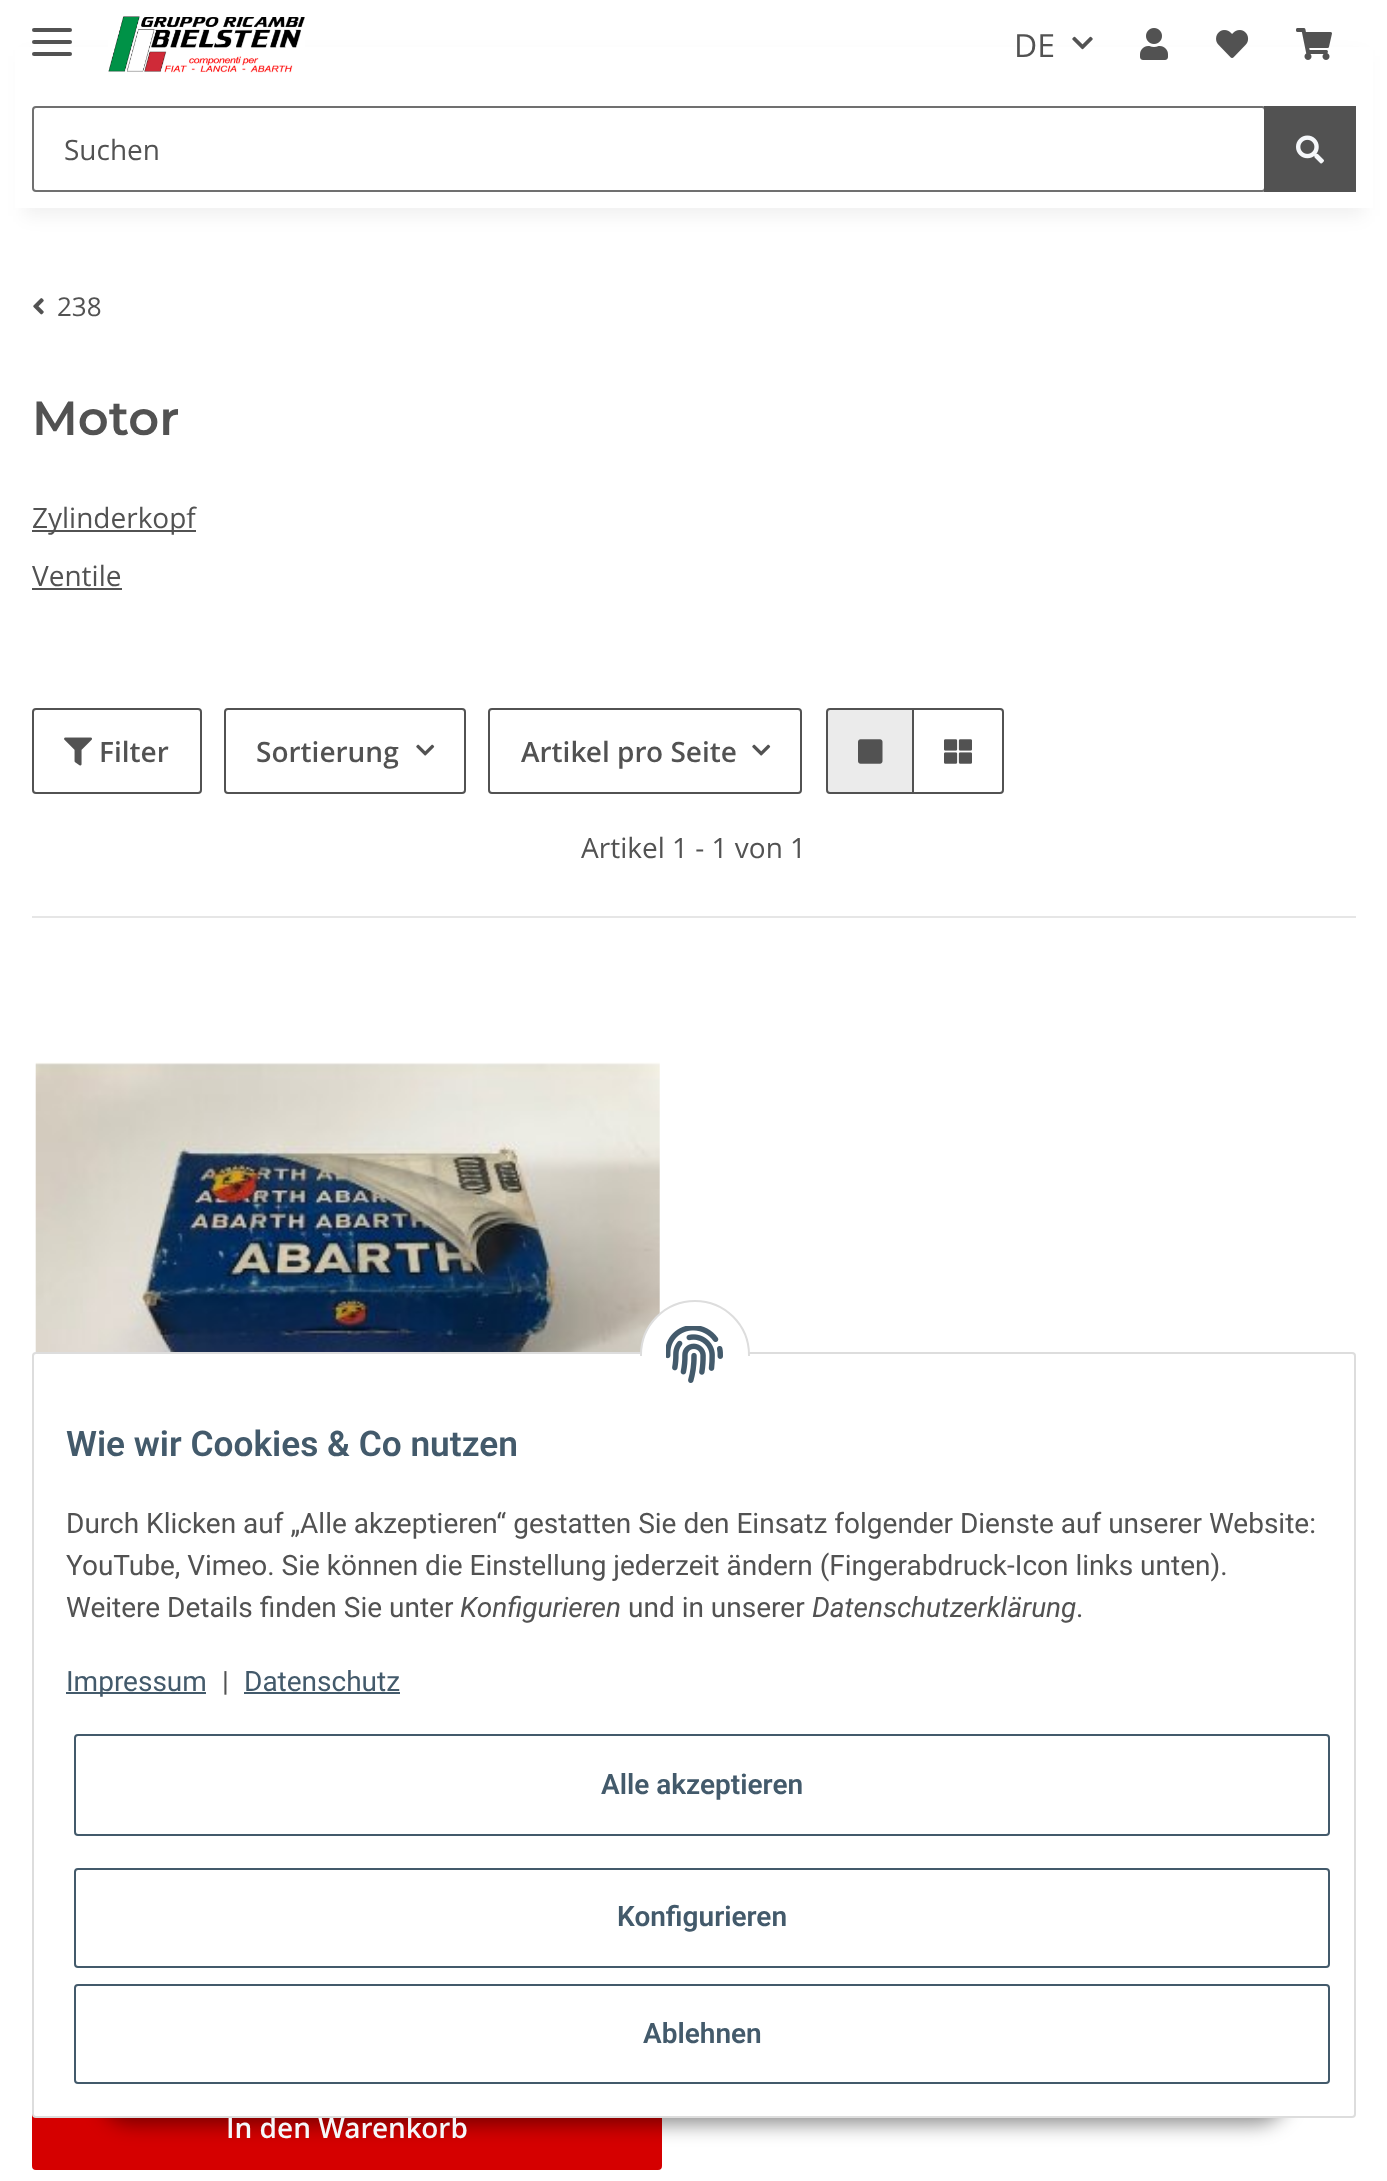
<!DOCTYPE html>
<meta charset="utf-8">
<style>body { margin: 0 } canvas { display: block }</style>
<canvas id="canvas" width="1387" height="2181"></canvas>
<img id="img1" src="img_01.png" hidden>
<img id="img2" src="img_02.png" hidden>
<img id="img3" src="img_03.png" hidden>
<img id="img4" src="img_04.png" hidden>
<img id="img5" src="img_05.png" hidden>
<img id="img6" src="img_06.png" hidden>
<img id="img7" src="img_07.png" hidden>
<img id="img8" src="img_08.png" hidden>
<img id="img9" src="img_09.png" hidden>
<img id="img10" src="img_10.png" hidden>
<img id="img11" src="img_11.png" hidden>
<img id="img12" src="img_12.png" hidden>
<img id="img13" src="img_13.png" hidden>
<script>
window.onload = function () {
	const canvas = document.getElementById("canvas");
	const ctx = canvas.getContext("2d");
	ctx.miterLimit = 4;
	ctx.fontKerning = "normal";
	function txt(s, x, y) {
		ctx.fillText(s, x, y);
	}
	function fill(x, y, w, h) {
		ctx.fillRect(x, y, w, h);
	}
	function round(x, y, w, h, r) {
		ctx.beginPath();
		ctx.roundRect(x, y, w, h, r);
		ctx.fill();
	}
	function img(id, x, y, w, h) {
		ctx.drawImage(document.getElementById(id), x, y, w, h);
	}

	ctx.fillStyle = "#FFFFFF";
	fill(0, 0, 1387, 2181);
	ctx.fillStyle = "rgba(0, 0, 0, 0.06)";
	ctx.filter = "blur(9px)";
	ctx.beginPath();
	ctx.rect(24, 56, 1340, 160);
	ctx.fill();
	ctx.filter = "none";
	ctx.fillStyle = "#FFFFFF";
	fill(15, 47, 1358, 161);
	ctx.fillStyle = "#525252";
	round(32, 40, 40, 4, 2);
	round(32, 28, 40, 4, 2);
	round(32, 52, 40, 4, 2);
	img("img1", 108, 16, 197, 57);
	img("img2", 1072, 36, 21, 14);
	img("img3", 1140, 28, 28, 32);
	img("img4", 1216, 30, 33, 28);
	img("img5", 1296, 28, 36, 32);
	ctx.beginPath();
	ctx.roundRect(33, 107, 1232, 84, 3);
	ctx.strokeStyle = "#707070";
	ctx.lineWidth = 2;
	ctx.stroke();
	fill(1264, 106, 92, 86);
	img("img6", 1296, 135, 28, 29);
	img("img7", 33, 298, 11, 17);
	fill(32, 530, 164, 2);
	fill(32, 588, 90, 2);
	ctx.beginPath();
	ctx.roundRect(33, 709, 168, 84, 3);
	ctx.strokeStyle = "#525252";
	ctx.stroke();
	img("img8", 64, 737, 28, 29);
	ctx.beginPath();
	ctx.roundRect(225, 709, 240, 84, 3);
	ctx.stroke();
	img("img9", 416, 744, 19, 12);
	ctx.beginPath();
	ctx.roundRect(489, 709, 312, 84, 3);
	ctx.stroke();
	img("img9", 752, 744, 19, 12);
	ctx.beginPath();
	ctx.roundRect(913, 709, 90, 84, [0, 3, 3, 0]);
	ctx.stroke();
	ctx.fillStyle = "#EBEBEB";
	ctx.beginPath();
	ctx.roundRect(827, 709, 86, 84, [3, 0, 0, 3]);
	ctx.fill();
	ctx.stroke();
	img("img10", 858, 739, 25, 25);
	img("img11", 944, 739, 28, 25);
	ctx.fillStyle = "#E6E6E6";
	fill(32, 916, 1324, 2);
	img("img12", 35, 1062, 625, 291);
	ctx.fillStyle = "#D50000";
	ctx.beginPath();
	ctx.roundRect(33, 2085, 628, 84, 3);
	ctx.fill();
	ctx.strokeStyle = "#D50000";
	ctx.stroke();
	ctx.fillStyle = "rgba(0, 0, 0, 0.45)";
	ctx.filter = "blur(10px)";
	ctx.beginPath();
	ctx.roundRect(100, 2060, 1188, 64, 32);
	ctx.fill();
	ctx.filter = "none";
	ctx.font = "32px Open Sans";
	ctx.fillStyle = "#525252";
	txt("DE", 1014, 57);
	ctx.font = "28px Open Sans";
	txt("Suchen", 64, 160);
	ctx.font = "26px Open Sans";
	txt("238", 57, 316);
	ctx.font = "600 48px Montserrat";
	txt("Motor", 32, 435);
	ctx.font = "28px Open Sans";
	txt("Zylinderkopf", 32, 528);
	txt("Ventile", 32, 586);
	ctx.font = "600 28px Open Sans";
	txt("Filter", 99, 762);
	txt("Sortierung", 256, 762);
	txt("Artikel pro Seite", 521, 762);
	ctx.font = "28px Open Sans";
	txt("Artikel 1 - 1 von 1", 581, 858);
	ctx.font = "600 28px Open Sans";
	ctx.fillStyle = "#F5F7FA";
	txt("In den Warenkorb", 226, 2138);
	ctx.fillStyle = "#FFFFFF";
	ctx.beginPath();
	ctx.roundRect(33, 1353, 1322, 764, 3);
	ctx.fill();
	ctx.strokeStyle = "#DDDDDD";
	ctx.stroke();
	ctx.beginPath();
	ctx.arc(695, 1355, 54, 0, Math.PI * 2);
	ctx.fill();
	ctx.stroke();
	fill(640, 1356, 110, 54);
	img("img13", 666, 1326, 57, 57);
	ctx.font = "600 35.25px Roboto";
	ctx.fillStyle = "#435A6B";
	txt("Wie wir Cookies & Co nutzen", 66, 1456);
	ctx.font = "28px Roboto";
	ctx.fillStyle = "#525252";
	txt("Durch Klicken auf „Alle akzeptieren“ gestatten Sie den Einsatz folgender Dienste auf unserer Website:", 66, 1533);
	txt("YouTube, Vimeo. Sie können die Einstellung jederzeit ändern (Fingerabdruck-Icon links unten).", 66, 1575);
	txt("Weitere Details finden Sie unter", 66, 1617);
	ctx.font = "italic 28px Roboto";
	txt("Konfigurieren", 460, 1617);
	ctx.font = "28px Roboto";
	txt("und in unserer", 628, 1617);
	ctx.font = "italic 28px Roboto";
	txt("Datenschutzerklärung", 812, 1617);
	ctx.font = "28px Roboto";
	txt(".", 1076, 1617);
	ctx.fillStyle = "#435A6B";
	fill(66, 1692, 140, 2);
	txt("Impressum", 66, 1691);
	ctx.fillStyle = "#525252";
	txt("|", 222, 1691);
	ctx.fillStyle = "#435A6B";
	txt("Datenschutz", 244, 1691);
	fill(244, 1692, 156, 2);
	ctx.beginPath();
	ctx.roundRect(75, 1735, 1254, 100, 3);
	ctx.strokeStyle = "#435A6B";
	ctx.stroke();
	ctx.font = "600 28px Roboto";
	txt("Alle akzeptieren", 601, 1794);
	ctx.beginPath();
	ctx.roundRect(75, 1869, 1254, 98, 3);
	ctx.stroke();
	txt("Konfigurieren", 617, 1926);
	ctx.beginPath();
	ctx.roundRect(75, 1985, 1254, 98, 3);
	ctx.stroke();
	txt("Ablehnen", 643, 2043);
};
</script>
